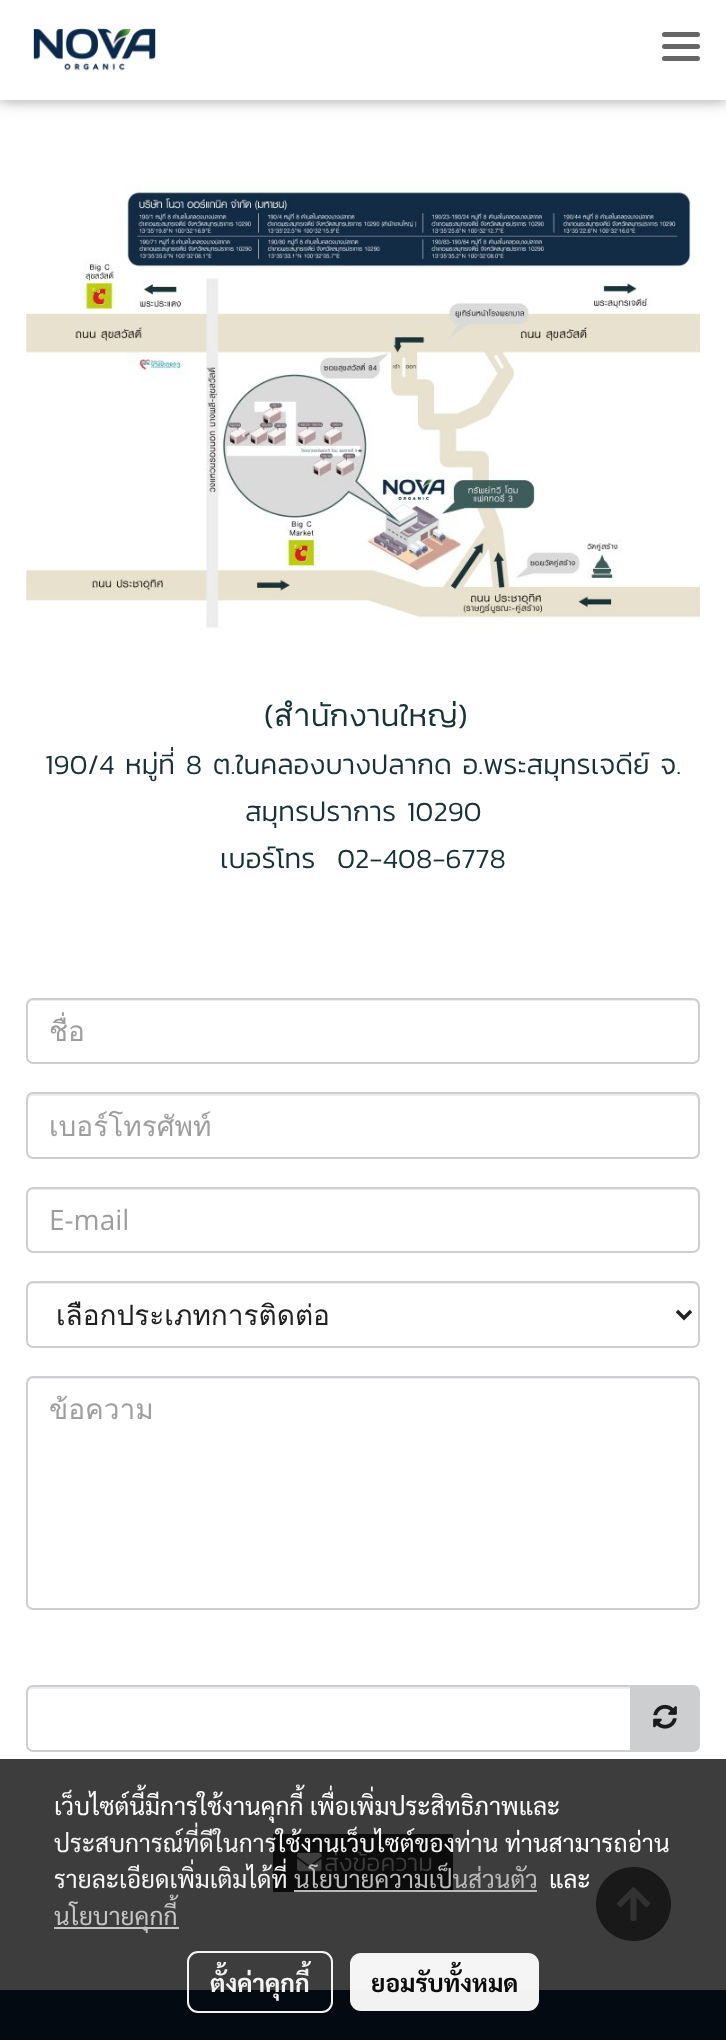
<!DOCTYPE html>
<meta charset="utf-8">
<style>body { margin: 0 } canvas { display: block }</style>
<canvas id="canvas" width="726" height="2040"></canvas>
<img id="img1" src="img_01.png" hidden>
<img id="img2" src="img_02.png" hidden>
<img id="img3" src="img_03.png" hidden>
<img id="img4" src="img_05.png" hidden>
<img id="img5" src="img_04.png" hidden>
<script>
window.onload = function () {
	const canvas = document.getElementById("canvas");
	const ctx = canvas.getContext("2d");
	ctx.miterLimit = 4;
	ctx.fontKerning = "normal";
	function txt(s, x, y) {
		ctx.fillText(s, x, y);
	}
	function fill(x, y, w, h) {
		ctx.fillRect(x, y, w, h);
	}
	function round(x, y, w, h, r) {
		ctx.beginPath();
		ctx.roundRect(x, y, w, h, r);
		ctx.fill();
	}
	function img(id, x, y, w, h) {
		ctx.drawImage(document.getElementById(id), x, y, w, h);
	}

	ctx.fillStyle = "#FFFFFF";
	fill(0, 0, 726, 2040);
	ctx.fillStyle = "#3D3D3D";
	fill(0, 1759, 726, 231);
	ctx.fillStyle = "#BBBBBB";
	fill(453, 1890, 84, 2);
	ctx.fillStyle = "rgba(0, 0, 0, 0.12)";
	ctx.filter = "blur(9px)";
	ctx.beginPath();
	ctx.rect(0, 4, 726, 99);
	ctx.fill();
	ctx.filter = "none";
	ctx.fillStyle = "rgba(0, 0, 0, 0.16)";
	ctx.filter = "blur(4.5px)";
	ctx.beginPath();
	ctx.rect(0, 4, 726, 99);
	ctx.fill();
	ctx.filter = "none";
	ctx.fillStyle = "#FFFFFF";
	fill(0, 0, 726, 100);
	img("img1", 33, 28, 123, 43);
	ctx.fillStyle = "#666666";
	round(662, 44, 38, 5, 2.5);
	round(662, 32, 38, 5, 2.5);
	round(662, 56, 38, 5, 2.5);
	img("img2", 26, 180, 674, 448);
	ctx.fillStyle = "#ECECEC";
	ctx.beginPath();
	ctx.moveTo(33, 1001);
	ctx.lineTo(693, 1001);
	ctx.bezierCurveTo(696, 1001, 698, 1003, 698, 1006);
	ctx.lineTo(698, 1004);
	ctx.bezierCurveTo(698, 1001, 696, 999, 693, 999);
	ctx.lineTo(33, 999);
	ctx.bezierCurveTo(30, 999, 28, 1001, 28, 1004);
	ctx.lineTo(28, 1006);
	ctx.bezierCurveTo(28, 1003, 30, 1001, 33, 1001);
	ctx.closePath();
	ctx.fill();
	ctx.beginPath();
	ctx.roundRect(27, 999, 672, 64, 6);
	ctx.strokeStyle = "#CDCED2";
	ctx.lineWidth = 2;
	ctx.stroke();
	ctx.beginPath();
	ctx.moveTo(33, 1096);
	ctx.lineTo(693, 1096);
	ctx.bezierCurveTo(696, 1096, 698, 1098, 698, 1101);
	ctx.lineTo(698, 1099);
	ctx.bezierCurveTo(698, 1096, 696, 1094, 693, 1094);
	ctx.lineTo(33, 1094);
	ctx.bezierCurveTo(30, 1094, 28, 1096, 28, 1099);
	ctx.lineTo(28, 1101);
	ctx.bezierCurveTo(28, 1098, 30, 1096, 33, 1096);
	ctx.closePath();
	ctx.fill();
	ctx.beginPath();
	ctx.roundRect(27, 1093, 672, 65, 6);
	ctx.stroke();
	ctx.beginPath();
	ctx.moveTo(33, 1190);
	ctx.lineTo(693, 1190);
	ctx.bezierCurveTo(696, 1190, 698, 1192, 698, 1195);
	ctx.lineTo(698, 1193);
	ctx.bezierCurveTo(698, 1190, 696, 1188, 693, 1188);
	ctx.lineTo(33, 1188);
	ctx.bezierCurveTo(30, 1188, 28, 1190, 28, 1193);
	ctx.lineTo(28, 1195);
	ctx.bezierCurveTo(28, 1192, 30, 1190, 33, 1190);
	ctx.closePath();
	ctx.fill();
	ctx.beginPath();
	ctx.roundRect(27, 1188, 672, 64, 6);
	ctx.stroke();
	ctx.beginPath();
	ctx.moveTo(33, 1284);
	ctx.lineTo(693, 1284);
	ctx.bezierCurveTo(696, 1284, 698, 1287, 698, 1290);
	ctx.lineTo(698, 1288);
	ctx.bezierCurveTo(698, 1285, 696, 1283, 693, 1283);
	ctx.lineTo(33, 1283);
	ctx.bezierCurveTo(30, 1283, 28, 1285, 28, 1288);
	ctx.lineTo(28, 1290);
	ctx.bezierCurveTo(28, 1287, 30, 1284, 33, 1284);
	ctx.closePath();
	ctx.fill();
	ctx.beginPath();
	ctx.roundRect(27, 1282, 672, 65, 6);
	ctx.stroke();
	ctx.beginPath();
	ctx.moveTo(677, 1311);
	ctx.lineTo(684, 1318);
	ctx.lineTo(691, 1311);
	ctx.strokeStyle = "#212121";
	ctx.lineWidth = 3.5;
	ctx.stroke();
	ctx.beginPath();
	ctx.moveTo(33, 1379);
	ctx.lineTo(693, 1379);
	ctx.bezierCurveTo(696, 1379, 698, 1381, 698, 1384);
	ctx.lineTo(698, 1382);
	ctx.bezierCurveTo(698, 1379, 696, 1377, 693, 1377);
	ctx.lineTo(33, 1377);
	ctx.bezierCurveTo(30, 1377, 28, 1379, 28, 1382);
	ctx.lineTo(28, 1384);
	ctx.bezierCurveTo(28, 1381, 30, 1379, 33, 1379);
	ctx.closePath();
	ctx.fill();
	ctx.beginPath();
	ctx.roundRect(27, 1377, 672, 232, 6);
	ctx.strokeStyle = "#CDCED2";
	ctx.lineWidth = 2;
	ctx.stroke();
	ctx.beginPath();
	ctx.moveTo(33, 1689);
	ctx.lineTo(630, 1689);
	ctx.lineTo(630, 1687);
	ctx.lineTo(33, 1687);
	ctx.bezierCurveTo(29, 1687, 28, 1691, 28, 1694);
	ctx.bezierCurveTo(28, 1691, 30, 1689, 33, 1689);
	ctx.closePath();
	ctx.fill();
	ctx.beginPath();
	ctx.roundRect(27, 1686, 604, 65, [6, 0, 0, 6]);
	ctx.stroke();
	ctx.fillStyle = "#CDCED0";
	ctx.beginPath();
	ctx.roundRect(631, 1686, 68, 65, [0, 6, 6, 0]);
	ctx.fill();
	ctx.stroke();
	img("img3", 653, 1704, 24, 25);
	ctx.fillStyle = "#0C0C0C";
	fill(273, 1834, 180, 58);
	ctx.fillStyle = "#B9B9B9";
	fill(294, 1890, 159, 2);
	ctx.fillStyle = "#030A12";
	fill(0, 1990, 726, 50);
	ctx.fillStyle = "#C5C5C5";
	fill(54, 1927, 125, 2);
	ctx.beginPath();
	ctx.roundRect(188, 1952, 144, 60, 10);
	ctx.strokeStyle = "rgba(255, 255, 255, 0.95)";
	ctx.stroke();
	ctx.fillStyle = "rgba(255, 255, 255, 0.95)";
	round(350, 1953, 189, 58, 11);
	ctx.fillStyle = "#1A1919";
	ctx.beginPath();
	ctx.moveTo(634, 1867);
	ctx.bezierCurveTo(613, 1867, 596, 1883, 596, 1904);
	ctx.bezierCurveTo(596, 1925, 613, 1941, 634, 1941);
	ctx.bezierCurveTo(654, 1941, 671, 1925, 671, 1904);
	ctx.bezierCurveTo(671, 1883, 654, 1867, 634, 1867);
	ctx.closePath();
	ctx.fill();
	img("img4", 617, 1887, 33, 34);
	ctx.font = "300 31.5px Kanit";
	ctx.fillStyle = "#193237";
	txt("(สำนักงานใหญ่)", 264, 726);
	ctx.font = "300 28px Kanit";
	txt("190/4 หมู่ที่ 8 ต.ในคลองบางปลากด อ.พระสมุทรเจดีย์ จ.", 45, 774);
	txt("สมุทรปราการ 10290", 245, 821);
	txt("เบอร์โทร", 220, 868);
	txt("02-408-6778", 337, 868);
	ctx.save();
	ctx.beginPath();
	ctx.rect(49, 1010, 628, 44);
	ctx.clip();
	ctx.font = "28px Loma";
	ctx.fillStyle = "#9E9E9E";
	txt("ชื่อ", 49, 1041);
	ctx.restore();
	ctx.font = "28px Loma";
	ctx.fillStyle = "#9E9E9E";
	txt("เบอร์โทรศัพท์", 49, 1136);
	ctx.font = "28px Open Sans";
	txt("E-mail", 49, 1230);
	ctx.save();
	ctx.beginPath();
	ctx.rect(56, 1293, 593, 42);
	ctx.clip();
	ctx.font = "28px Loma";
	ctx.fillStyle = "#212121";
	txt("เลือกประเภทการติดต่อ", 56, 1325);
	ctx.restore();
	ctx.font = "28px Loma";
	txt("ข้อความ", 49, 1419);
	ctx.font = "300 24.5px Kanit";
	ctx.fillStyle = "#3D3D3D";
	txt("ส่งข้อความ", 324, 1871);
	img("img5", 297, 1852, 25, 20);
	ctx.font = "24.5px Sarabun";
	ctx.fillStyle = "#FFFFFF";
	txt("เว็บไซต์นี้มีการใช้งานคุกกี้ เพื่อเพิ่มประสิทธิภาพและ", 54, 1815);
	ctx.fillStyle = "#F4F4F4";
	txt("ประสบการณ์ที่ดีในการใช้งานเว็บไซต์ของท่าน", 54, 1852);
	ctx.fillStyle = "#FFFFFF";
	txt("ท่านสามารถอ่าน", 505, 1852);
	ctx.fillStyle = "#F4F4F4";
	txt("รายละเอียดเพิ่มเติมได้ที่", 54, 1888);
	ctx.fillStyle = "#BABABA";
	txt("นโยบายความเป็นส่วนตัว", 294, 1888);
	ctx.fillStyle = "#FFFFFF";
	txt("และ", 549, 1888);
	ctx.fillStyle = "#C5C5C5";
	txt("นโยบายคุกกี้", 54, 1925);
	ctx.font = "bold 24.5px Sarabun";
	ctx.fillStyle = "#F4F4F4";
	txt("ตั้งค่าคุกกี้", 210, 1992);
	ctx.fillStyle = "#0C0C0C";
	txt("ยอมรับทั้งหมด", 371, 1992);
};
</script>
